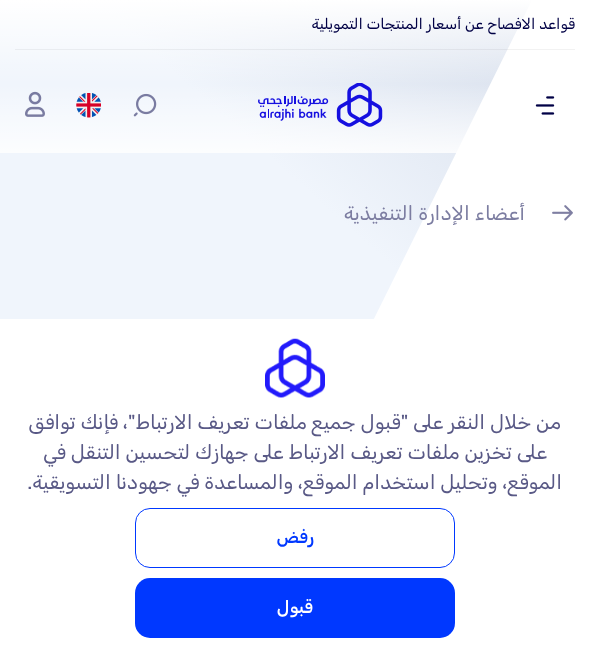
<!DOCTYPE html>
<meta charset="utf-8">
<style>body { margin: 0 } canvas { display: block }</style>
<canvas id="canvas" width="590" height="657"></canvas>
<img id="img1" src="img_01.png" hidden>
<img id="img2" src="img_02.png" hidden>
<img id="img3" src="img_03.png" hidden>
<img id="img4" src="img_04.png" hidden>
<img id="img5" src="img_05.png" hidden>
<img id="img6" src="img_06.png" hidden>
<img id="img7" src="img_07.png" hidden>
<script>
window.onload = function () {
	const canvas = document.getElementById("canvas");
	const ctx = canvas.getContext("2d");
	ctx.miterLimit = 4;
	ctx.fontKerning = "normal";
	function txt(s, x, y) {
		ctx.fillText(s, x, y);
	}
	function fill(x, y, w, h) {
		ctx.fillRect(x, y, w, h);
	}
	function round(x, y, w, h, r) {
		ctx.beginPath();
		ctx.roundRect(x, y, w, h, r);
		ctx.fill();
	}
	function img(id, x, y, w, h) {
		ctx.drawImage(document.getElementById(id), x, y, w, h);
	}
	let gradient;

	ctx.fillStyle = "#FFFFFF";
	fill(0, 0, 590, 657);
	gradient = ctx.createLinearGradient(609, 17, -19, 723);
	gradient.addColorStop(0, "#D3DBE9");
	gradient.addColorStop(0.35, "#F0F5FC");
	ctx.fillStyle = gradient;
	ctx.beginPath();
	ctx.moveTo(0, 0);
	ctx.lineTo(532, 0);
	ctx.lineTo(295, 478);
	ctx.bezierCurveTo(251, 567, 173, 641, 75, 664);
	ctx.bezierCurveTo(50, 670, 25, 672, 0, 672);
	ctx.closePath();
	ctx.fill();
	gradient = ctx.createLinearGradient(295, 0, 295, 168);
	gradient.addColorStop(0, "#FFFFFF");
	gradient.addColorStop(0.5, "rgba(255, 255, 255, 0)");
	gradient.addColorStop(1, "#FFFFFF");
	ctx.fillStyle = gradient;
	fill(0, 0, 532, 153);
	ctx.fillStyle = "rgba(0, 0, 0, 0.05)";
	fill(15, 49, 560, 1);
	img("img1", 535, 96, 20, 19);
	img("img2", 258, 83, 125, 44);
	img("img3", 133, 93, 24, 24);
	img("img4", 76, 93, 25, 25);
	img("img5", 25, 91, 20, 26);
	img("img6", 552, 205, 21, 16);
	ctx.fillStyle = "#FFFFFF";
	fill(0, 319, 374, 338);
	img("img7", 265, 338, 60, 60);
	ctx.beginPath();
	ctx.roundRect(135.5, 508.5, 319, 59, 14.5);
	ctx.strokeStyle = "#0038FF";
	ctx.stroke();
	ctx.fillStyle = "#0038FF";
	round(135, 578, 320, 60, 15);
	ctx.direction = "rtl";
	ctx.font = "15px Rubik";
	ctx.fillStyle = "#000045";
	txt("قواعد الافصاح عن أسعار المنتجات التمويلية", 575, 29);
	ctx.font = "20px Rubik";
	ctx.fillStyle = "#7C7DA1";
	txt("أعضاء الإدارة التنفيذية", 525, 220);
	ctx.fillStyle = "#595986";
	txt("من خلال النقر على \"قبول جميع ملفات تعريف الارتباط\"، فإنك توافق", 561, 429);
	txt("على تخزين ملفات تعريف الارتباط على جهازك لتحسين التنقل في", 547, 459);
	txt("الموقع، وتحليل استخدام الموقع، والمساعدة في جهودنا التسويقية.", 562, 489);
	ctx.font = "500 17.5px Rubik";
	ctx.fillStyle = "#0038FF";
	txt("رفض", 314, 543);
	ctx.fillStyle = "#FFFFFF";
	txt("قبول", 313, 613);
};
</script>
